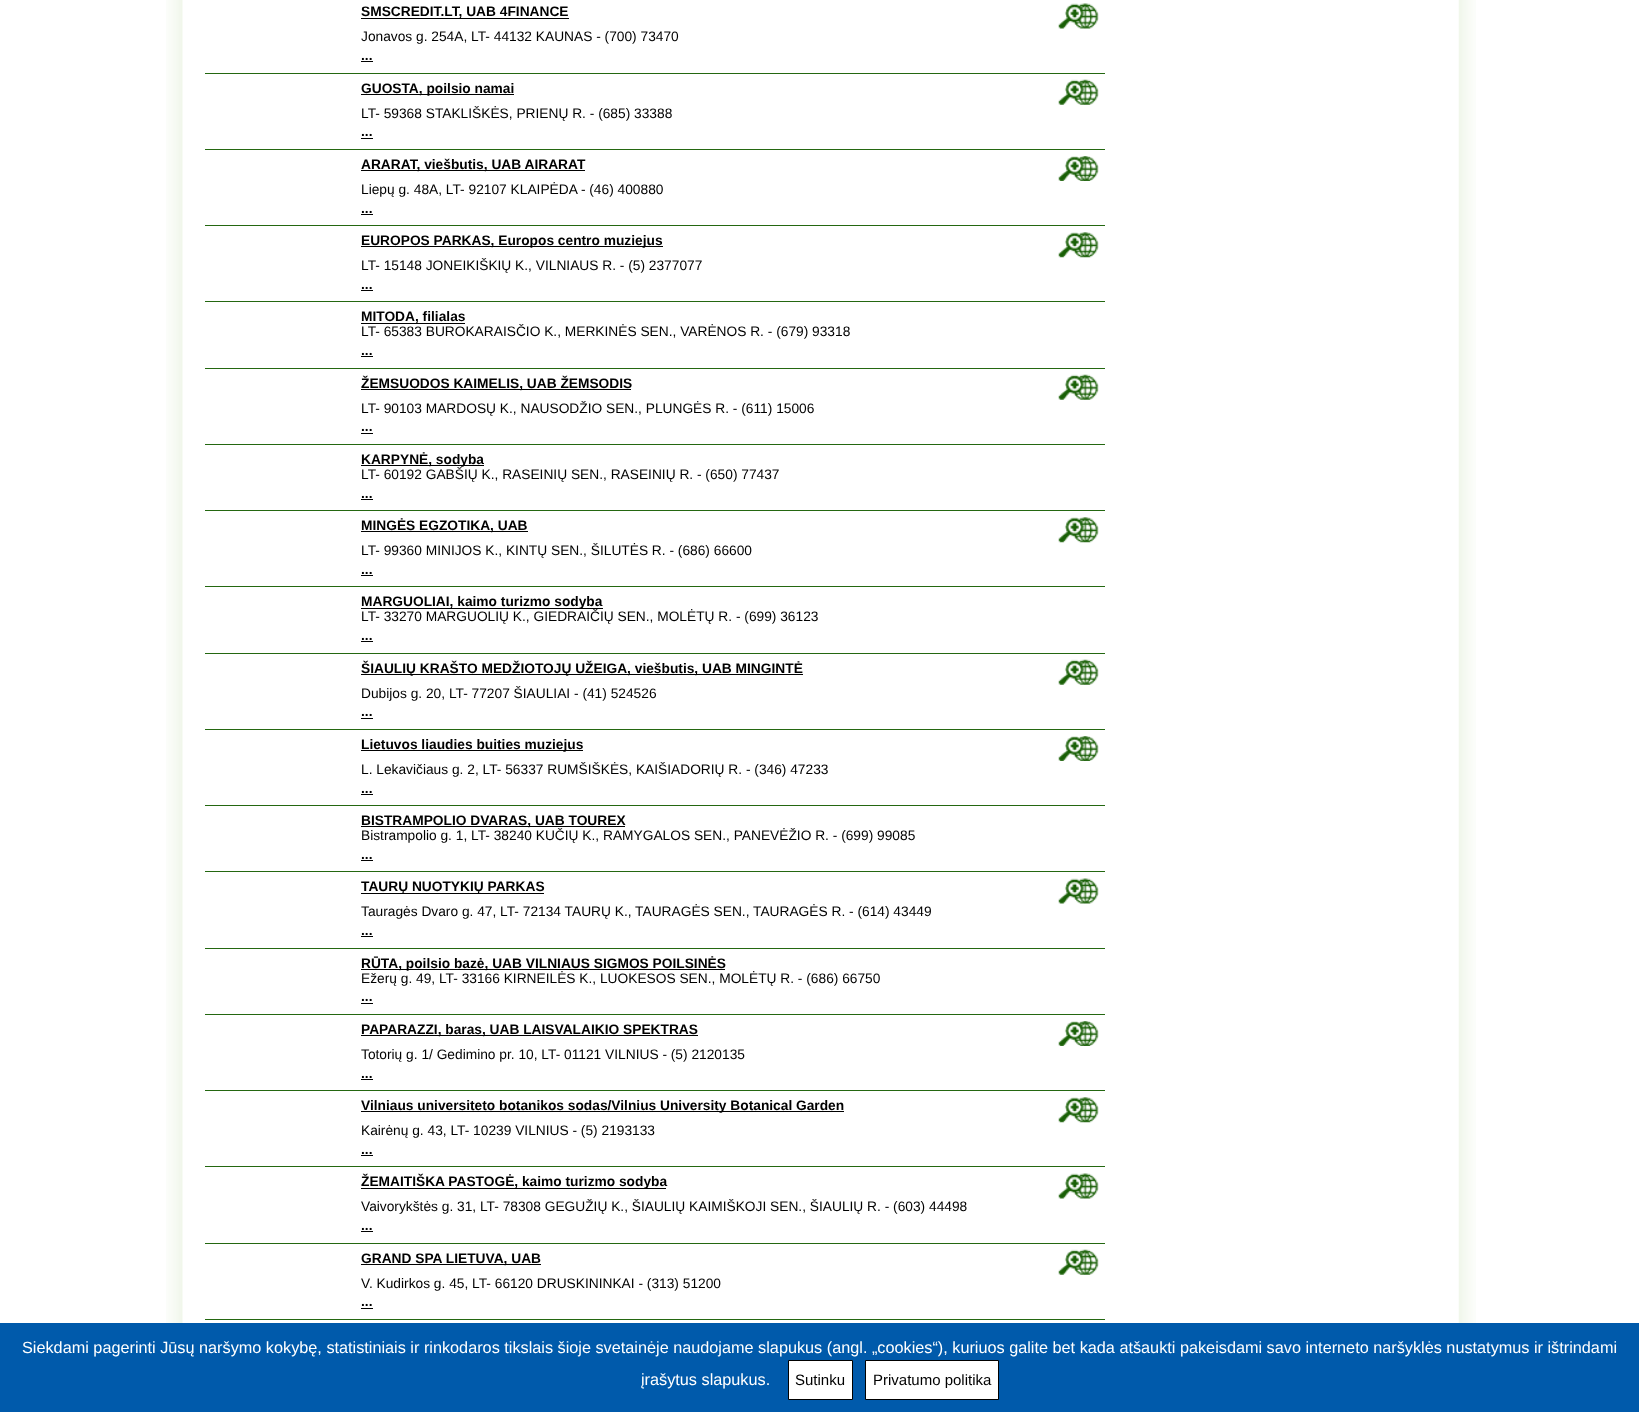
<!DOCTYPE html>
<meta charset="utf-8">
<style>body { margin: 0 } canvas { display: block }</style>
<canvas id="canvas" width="1639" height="1412"></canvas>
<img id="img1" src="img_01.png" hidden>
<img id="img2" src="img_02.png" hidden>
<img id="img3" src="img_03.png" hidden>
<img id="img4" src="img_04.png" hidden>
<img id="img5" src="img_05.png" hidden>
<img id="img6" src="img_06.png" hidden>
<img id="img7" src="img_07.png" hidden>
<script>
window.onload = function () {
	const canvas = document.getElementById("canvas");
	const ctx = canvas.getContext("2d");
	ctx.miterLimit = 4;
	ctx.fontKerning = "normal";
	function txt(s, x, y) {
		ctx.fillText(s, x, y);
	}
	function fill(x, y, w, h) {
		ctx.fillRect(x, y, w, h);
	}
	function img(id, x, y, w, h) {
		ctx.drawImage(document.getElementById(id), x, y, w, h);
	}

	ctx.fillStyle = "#FFFFFF";
	fill(0, 0, 1639, 1412);
	img("img1", 166, 0, 1310, 1323);
	ctx.fillStyle = "#246711";
	fill(205, 73, 900, 1);
	ctx.fillStyle = "#000000";
	fill(361, 18, 208, 1);
	img("img2", 1058, 3, 41, 26);
	fill(361, 61, 12, 1);
	ctx.fillStyle = "#246711";
	fill(205, 149, 900, 1);
	ctx.fillStyle = "#000000";
	fill(361, 94, 153, 1);
	img("img3", 1058, 79, 41, 26);
	fill(361, 138, 12, 1);
	ctx.fillStyle = "#246711";
	fill(205, 225, 900, 1);
	ctx.fillStyle = "#000000";
	fill(361, 170, 224, 1);
	img("img4", 1058, 156, 41, 25);
	fill(361, 214, 12, 1);
	ctx.fillStyle = "#246711";
	fill(205, 301, 900, 1);
	ctx.fillStyle = "#000000";
	fill(361, 246, 302, 1);
	img("img5", 1058, 232, 41, 26);
	fill(361, 290, 12, 1);
	ctx.fillStyle = "#246711";
	fill(205, 368, 900, 1);
	ctx.fillStyle = "#000000";
	fill(361, 323, 104, 1);
	fill(361, 356, 12, 1);
	ctx.fillStyle = "#246711";
	fill(205, 444, 900, 1);
	ctx.fillStyle = "#000000";
	fill(361, 389, 270, 1);
	img("img6", 1058, 374, 41, 26);
	fill(361, 433, 12, 1);
	ctx.fillStyle = "#246711";
	fill(205, 510, 900, 1);
	ctx.fillStyle = "#000000";
	fill(361, 465, 123, 1);
	fill(361, 499, 12, 1);
	ctx.fillStyle = "#246711";
	fill(205, 586, 900, 1);
	ctx.fillStyle = "#000000";
	fill(361, 531, 167, 1);
	img("img7", 1058, 517, 41, 26);
	fill(361, 575, 12, 1);
	ctx.fillStyle = "#246711";
	fill(205, 653, 900, 1);
	ctx.fillStyle = "#000000";
	fill(361, 608, 242, 1);
	fill(361, 641, 12, 1);
	ctx.fillStyle = "#246711";
	fill(205, 729, 900, 1);
	ctx.fillStyle = "#000000";
	fill(361, 674, 442, 1);
	img("img3", 1058, 659, 41, 26);
	fill(361, 718, 12, 1);
	ctx.fillStyle = "#246711";
	fill(205, 805, 900, 1);
	ctx.fillStyle = "#000000";
	fill(361, 750, 222, 1);
	img("img4", 1058, 736, 41, 25);
	fill(361, 794, 12, 1);
	ctx.fillStyle = "#246711";
	fill(205, 871, 900, 1);
	ctx.fillStyle = "#000000";
	fill(361, 826, 264, 1);
	fill(361, 860, 12, 1);
	ctx.fillStyle = "#246711";
	fill(205, 948, 900, 1);
	ctx.fillStyle = "#000000";
	fill(361, 893, 183, 1);
	img("img2", 1058, 878, 41, 26);
	fill(361, 936, 12, 1);
	ctx.fillStyle = "#246711";
	fill(205, 1014, 900, 1);
	ctx.fillStyle = "#000000";
	fill(361, 969, 364, 1);
	fill(361, 1003, 12, 1);
	ctx.fillStyle = "#246711";
	fill(205, 1090, 900, 1);
	ctx.fillStyle = "#000000";
	fill(361, 1035, 337, 1);
	img("img4", 1058, 1021, 41, 25);
	fill(361, 1079, 12, 1);
	ctx.fillStyle = "#246711";
	fill(205, 1166, 900, 1);
	ctx.fillStyle = "#000000";
	fill(361, 1111, 483, 1);
	img("img5", 1058, 1097, 41, 26);
	fill(361, 1155, 12, 1);
	ctx.fillStyle = "#246711";
	fill(205, 1243, 900, 1);
	ctx.fillStyle = "#000000";
	fill(361, 1188, 305, 1);
	img("img2", 1058, 1173, 41, 26);
	fill(361, 1231, 12, 1);
	ctx.fillStyle = "#246711";
	fill(205, 1319, 900, 1);
	ctx.fillStyle = "#000000";
	fill(361, 1264, 180, 1);
	img("img3", 1058, 1249, 41, 26);
	fill(361, 1308, 12, 1);
	ctx.fillStyle = "#005AAB";
	fill(0, 1323, 1639, 89);
	ctx.fillStyle = "#FFFFFF";
	ctx.beginPath();
	ctx.rect(788.5, 1360.5, 64, 39);
	ctx.fill();
	ctx.strokeStyle = "#000000";
	ctx.stroke();
	ctx.beginPath();
	ctx.rect(865.5, 1360.5, 133, 39);
	ctx.fill();
	ctx.stroke();
	ctx.font = "bold 13.75px Liberation Sans";
	ctx.fillStyle = "#000000";
	txt("SMSCREDIT.LT, UAB 4FINANCE", 361, 16);
	ctx.font = "13.75px Liberation Sans";
	txt("Jonavos g. 254A, LT- 44132 KAUNAS - (700) 73470", 361, 41);
	ctx.font = "bold 13.75px Liberation Sans";
	txt("...", 361, 60);
	txt("GUOSTA, poilsio namai", 361, 93);
	ctx.font = "13.75px Liberation Sans";
	txt("LT- 59368 STAKLIŠKĖS, PRIENŲ R. - (685) 33388", 361, 118);
	ctx.font = "bold 13.75px Liberation Sans";
	txt("...", 361, 136);
	txt("ARARAT, viešbutis, UAB AIRARAT", 361, 169);
	ctx.font = "13.75px Liberation Sans";
	txt("Liepų g. 48A, LT- 92107 KLAIPĖDA - (46) 400880", 361, 194);
	ctx.font = "bold 13.75px Liberation Sans";
	txt("...", 361, 213);
	txt("EUROPOS PARKAS, Europos centro muziejus", 361, 245);
	ctx.font = "13.75px Liberation Sans";
	txt("LT- 15148 JONEIKIŠKIŲ K., VILNIAUS R. - (5) 2377077", 361, 270);
	ctx.font = "bold 13.75px Liberation Sans";
	txt("...", 361, 289);
	txt("MITODA, filialas", 361, 321);
	ctx.font = "13.75px Liberation Sans";
	txt("LT- 65383 BUROKARAISČIO K., MERKINĖS SEN., VARĖNOS R. - (679) 93318", 361, 336);
	ctx.font = "bold 13.75px Liberation Sans";
	txt("...", 361, 355);
	txt("ŽEMSUODOS KAIMELIS, UAB ŽEMSODIS", 361, 388);
	ctx.font = "13.75px Liberation Sans";
	txt("LT- 90103 MARDOSŲ K., NAUSODŽIO SEN., PLUNGĖS R. - (611) 15006", 361, 413);
	ctx.font = "bold 13.75px Liberation Sans";
	txt("...", 361, 431);
	txt("KARPYNĖ, sodyba", 361, 464);
	ctx.font = "13.75px Liberation Sans";
	txt("LT- 60192 GABŠIŲ K., RASEINIŲ SEN., RASEINIŲ R. - (650) 77437", 361, 479);
	ctx.font = "bold 13.75px Liberation Sans";
	txt("...", 361, 498);
	txt("MINGĖS EGZOTIKA, UAB", 361, 530);
	ctx.font = "13.75px Liberation Sans";
	txt("LT- 99360 MINIJOS K., KINTŲ SEN., ŠILUTĖS R. - (686) 66600", 361, 555);
	ctx.font = "bold 13.75px Liberation Sans";
	txt("...", 361, 574);
	txt("MARGUOLIAI, kaimo turizmo sodyba", 361, 606);
	ctx.font = "13.75px Liberation Sans";
	txt("LT- 33270 MARGUOLIŲ K., GIEDRAIČIŲ SEN., MOLĖTŲ R. - (699) 36123", 361, 621);
	ctx.font = "bold 13.75px Liberation Sans";
	txt("...", 361, 640);
	txt("ŠIAULIŲ KRAŠTO MEDŽIOTOJŲ UŽEIGA, viešbutis, UAB MINGINTĖ", 361, 673);
	ctx.font = "13.75px Liberation Sans";
	txt("Dubijos g. 20, LT- 77207 ŠIAULIAI - (41) 524526", 361, 698);
	ctx.font = "bold 13.75px Liberation Sans";
	txt("...", 361, 716);
	txt("Lietuvos liaudies buities muziejus", 361, 749);
	ctx.font = "13.75px Liberation Sans";
	txt("L. Lekavičiaus g. 2, LT- 56337 RUMŠIŠKĖS, KAIŠIADORIŲ R. - (346) 47233", 361, 774);
	ctx.font = "bold 13.75px Liberation Sans";
	txt("...", 361, 793);
	txt("BISTRAMPOLIO DVARAS, UAB TOUREX", 361, 825);
	ctx.font = "13.75px Liberation Sans";
	txt("Bistrampolio g. 1, LT- 38240 KUČIŲ K., RAMYGALOS SEN., PANEVĖŽIO R. - (699) 99085", 361, 840);
	ctx.font = "bold 13.75px Liberation Sans";
	txt("...", 361, 859);
	txt("TAURŲ NUOTYKIŲ PARKAS", 361, 891);
	ctx.font = "13.75px Liberation Sans";
	txt("Tauragės Dvaro g. 47, LT- 72134 TAURŲ K., TAURAGĖS SEN., TAURAGĖS R. - (614) 43449", 361, 916);
	ctx.font = "bold 13.75px Liberation Sans";
	txt("...", 361, 935);
	txt("RŪTA, poilsio bazė, UAB VILNIAUS SIGMOS POILSINĖS", 361, 968);
	ctx.font = "13.75px Liberation Sans";
	txt("Ežerų g. 49, LT- 33166 KIRNEILĖS K., LUOKESOS SEN., MOLĖTŲ R. - (686) 66750", 361, 983);
	ctx.font = "bold 13.75px Liberation Sans";
	txt("...", 361, 1001);
	txt("PAPARAZZI, baras, UAB LAISVALAIKIO SPEKTRAS", 361, 1034);
	ctx.font = "13.75px Liberation Sans";
	txt("Totorių g. 1/ Gedimino pr. 10, LT- 01121 VILNIUS - (5) 2120135", 361, 1059);
	ctx.font = "bold 13.75px Liberation Sans";
	txt("...", 361, 1078);
	txt("Vilniaus universiteto botanikos sodas/Vilnius University Botanical Garden", 361, 1110);
	ctx.font = "13.75px Liberation Sans";
	txt("Kairėnų g. 43, LT- 10239 VILNIUS - (5) 2193133", 361, 1135);
	ctx.font = "bold 13.75px Liberation Sans";
	txt("...", 361, 1154);
	txt("ŽEMAITIŠKA PASTOGĖ, kaimo turizmo sodyba", 361, 1186);
	ctx.font = "13.75px Liberation Sans";
	txt("Vaivorykštės g. 31, LT- 78308 GEGUŽIŲ K., ŠIAULIŲ KAIMIŠKOJI SEN., ŠIAULIŲ R. - (603) 44498", 361, 1211);
	ctx.font = "bold 13.75px Liberation Sans";
	txt("...", 361, 1230);
	txt("GRAND SPA LIETUVA, UAB", 361, 1263);
	ctx.font = "13.75px Liberation Sans";
	txt("V. Kudirkos g. 45, LT- 66120 DRUSKININKAI - (313) 51200", 361, 1288);
	ctx.font = "bold 13.75px Liberation Sans";
	txt("...", 361, 1306);
	ctx.font = "16.25px Liberation Sans";
	ctx.fillStyle = "#FFFFFF";
	txt("Siekdami pagerinti Jūsų naršymo kokybę, statistiniais ir rinkodaros tikslais šioje svetainėje naudojame slapukus (angl. „cookies“), kuriuos galite bet kada atšaukti pakeisdami savo interneto naršyklės nustatymus ir ištrindami", 22, 1353);
	txt("įrašytus slapukus.", 641, 1385);
	ctx.font = "15px Liberation Sans";
	ctx.fillStyle = "#000000";
	txt("Sutinku", 795, 1385);
	txt("Privatumo politika", 873, 1385);
};
</script>
